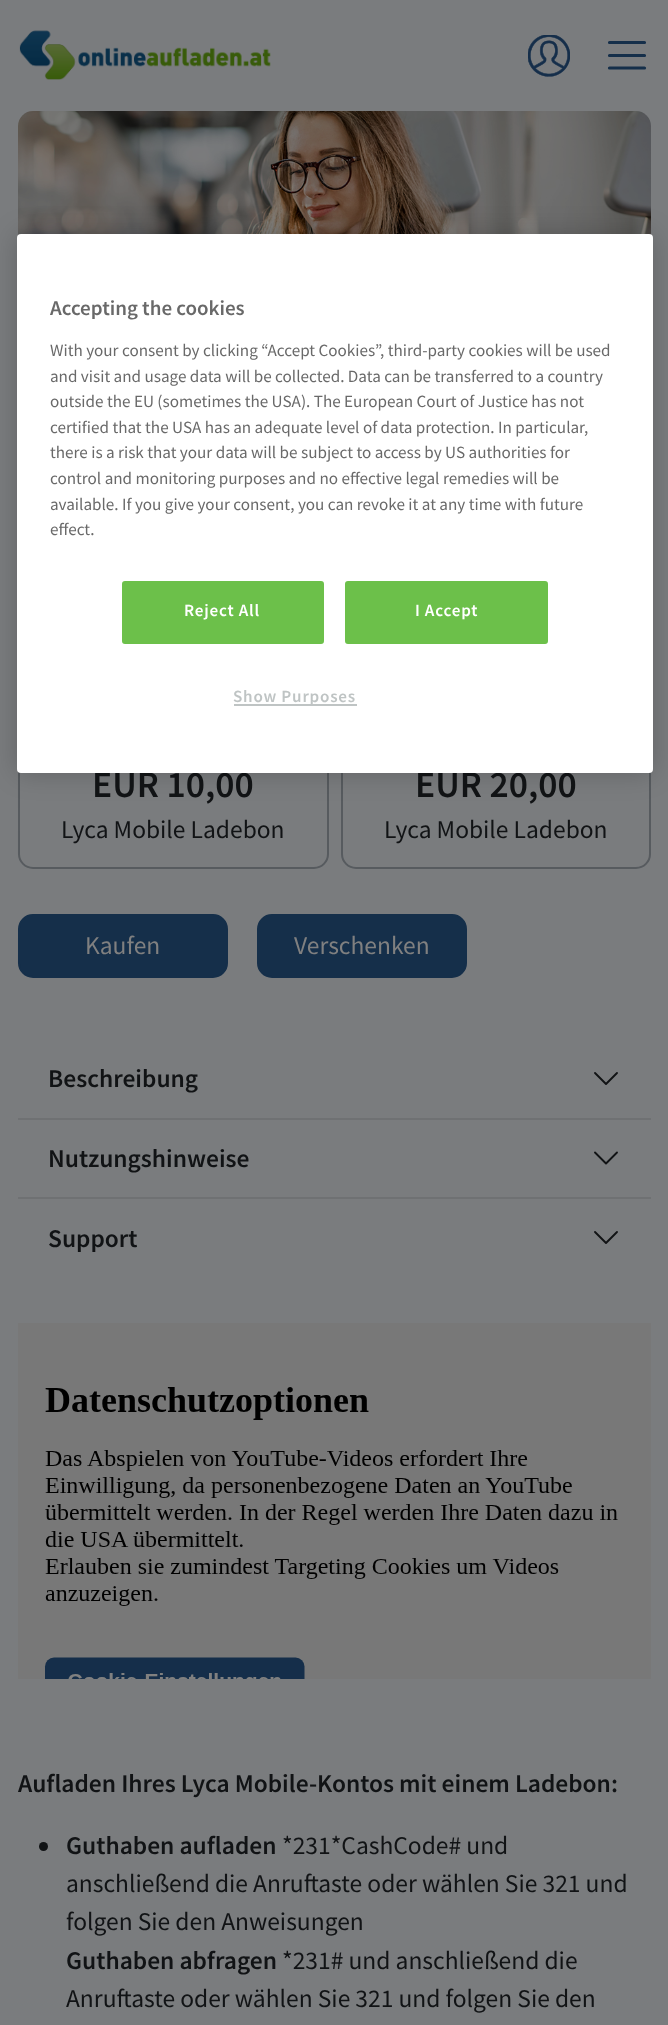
<!DOCTYPE html>
<meta charset="utf-8">
<style>body { margin: 0 } canvas { display: block }</style>
<canvas id="canvas" width="668" height="2025"></canvas>
<img id="img1" src="img_03.png" hidden>
<img id="img2" src="img_01.png" hidden>
<img id="img3" src="img_02.png" hidden>
<img id="img4" src="img_04.png" hidden>
<script>
window.onload = function () {
	const canvas = document.getElementById("canvas");
	const ctx = canvas.getContext("2d");
	ctx.miterLimit = 4;
	ctx.fontKerning = "normal";
	function txt(s, x, y) {
		ctx.fillText(s, x, y);
	}
	function fill(x, y, w, h) {
		ctx.fillRect(x, y, w, h);
	}
	function round(x, y, w, h, r) {
		ctx.beginPath();
		ctx.roundRect(x, y, w, h, r);
		ctx.fill();
	}
	function img(id, x, y, w, h) {
		ctx.drawImage(document.getElementById(id), x, y, w, h);
	}

	ctx.fillStyle = "#7A7C7E";
	fill(0, 0, 668, 2025);
	img("img1", 18, 111, 633, 125);
	ctx.beginPath();
	ctx.roundRect(19, 747, 309, 121, 14);
	ctx.strokeStyle = "#575B5F";
	ctx.lineWidth = 2;
	ctx.stroke();
	ctx.beginPath();
	ctx.roundRect(342, 747, 308, 121, 14);
	ctx.stroke();
	ctx.fillStyle = "rgba(0, 0, 0, 0.2)";
	ctx.filter = "blur(13.5px)";
	ctx.beginPath();
	ctx.roundRect(17, 234, 636, 539, 4);
	ctx.fill();
	ctx.filter = "none";
	img("img2", 19, 30, 252, 50);
	img("img3", 528, 35, 42, 42);
	ctx.beginPath();
	ctx.moveTo(609.5, 42.5);
	ctx.lineTo(644.5, 42.5);
	ctx.moveTo(609.5, 55.5);
	ctx.lineTo(644.5, 55.5);
	ctx.moveTo(609.5, 68);
	ctx.lineTo(644.5, 68);
	ctx.strokeStyle = "#152F4A";
	ctx.lineWidth = 3.2;
	ctx.lineCap = "round";
	ctx.stroke();
	ctx.fillStyle = "#152F4A";
	ctx.beginPath();
	ctx.roundRect(19, 915, 208, 62, 14);
	ctx.fill();
	ctx.lineWidth = 2;
	ctx.stroke();
	ctx.beginPath();
	ctx.roundRect(258, 915, 208, 62, 14);
	ctx.fill();
	ctx.stroke();
	ctx.fillStyle = "#6F7173";
	fill(18, 1118, 633, 2);
	ctx.beginPath();
	ctx.moveTo(595, 1073);
	ctx.lineTo(606, 1084);
	ctx.lineTo(617, 1073);
	ctx.strokeStyle = "#111315";
	ctx.lineWidth = 1.9;
	ctx.lineJoin = "round";
	ctx.stroke();
	fill(18, 1197, 633, 2);
	ctx.beginPath();
	ctx.moveTo(595, 1152.5);
	ctx.lineTo(606, 1163.5);
	ctx.lineTo(617, 1152.5);
	ctx.stroke();
	ctx.beginPath();
	ctx.moveTo(595, 1232);
	ctx.lineTo(606, 1243);
	ctx.lineTo(617, 1232);
	ctx.stroke();
	img("img4", 18, 1323, 633, 356);
	ctx.fillStyle = "#111315";
	ctx.beginPath();
	ctx.arc(43.5, 1846.5, 4.5, 0, Math.PI * 2);
	ctx.fill();
	ctx.font = "600 37.5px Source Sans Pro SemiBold";
	txt("EUR 10,00", 92, 797);
	ctx.font = "25.5px Source Sans Pro";
	txt("Lyca Mobile Ladebon", 61, 838);
	ctx.font = "600 37.5px Source Sans Pro SemiBold";
	txt("EUR 20,00", 415, 797);
	ctx.fillStyle = "#FFFFFF";
	round(17, 234, 636, 539, 4);
	ctx.fillStyle = "#BFC4C4";
	fill(234, 704, 123, 2);
	ctx.letterSpacing = "0.8px";
	ctx.font = "600 17.1px Source Sans Pro SemiBold";
	txt("Show Purposes", 233, 702);
	ctx.fillStyle = "#6CC04A";
	ctx.beginPath();
	ctx.roundRect(346, 582, 201, 61, 2);
	ctx.fill();
	ctx.strokeStyle = "#6CC04A";
	ctx.lineWidth = 2;
	ctx.lineJoin = "miter";
	ctx.stroke();
	ctx.fillStyle = "#FFFFFF";
	txt("I Accept", 415, 616);
	ctx.fillStyle = "#6CC04A";
	ctx.beginPath();
	ctx.roundRect(123, 582, 200, 61, 2);
	ctx.fill();
	ctx.stroke();
	ctx.fillStyle = "#FFFFFF";
	txt("Reject All", 184, 616);
	ctx.letterSpacing = "0px";
	ctx.font = "17.1px Source Sans Pro";
	ctx.fillStyle = "#696969";
	txt("effect.", 50, 535);
	txt("available. If you give your consent, you can revoke it at any time with future", 50, 510);
	txt("control and monitoring purposes and no effective legal remedies will be", 50, 484);
	txt("there is a risk that your data will be subject to access by US authorities for", 50, 458);
	txt("certified that the USA has an adequate level of data protection. In particular,", 50, 433);
	txt("outside the EU (sometimes the USA). The European Court of Justice has not", 50, 407);
	txt("and visit and usage data will be collected. Data can be transferred to a country", 50, 382);
	txt("With your consent by clicking “Accept Cookies”, third-party cookies will be used", 50, 356);
	ctx.font = "600 21px Source Sans Pro SemiBold";
	txt("Accepting the cookies", 50, 315);
	ctx.font = "25.5px Source Sans Pro";
	ctx.fillStyle = "#111315";
	txt("Lyca Mobile Ladebon", 384, 838);
	ctx.fillStyle = "#808080";
	txt("Kaufen", 85, 954);
	txt("Verschenken", 294, 954);
	ctx.font = "600 25.5px Source Sans Pro SemiBold";
	ctx.fillStyle = "#111315";
	txt("Beschreibung", 48, 1087);
	txt("Nutzungshinweise", 48, 1167);
	txt("Support", 48, 1247);
	txt("Aufladen Ihres Lyca Mobile-Kontos mit einem Ladebon:", 18, 1792);
	txt("Guthaben aufladen", 66, 1854);
	ctx.font = "25.5px Source Sans Pro";
	txt("*231*CashCode# und", 282, 1854);
	txt("anschließend die Anruftaste oder wählen Sie 321 und", 66, 1892);
	txt("folgen Sie den Anweisungen", 66, 1930);
	ctx.font = "600 25.5px Source Sans Pro SemiBold";
	txt("Guthaben abfragen", 66, 1969);
	ctx.font = "25.5px Source Sans Pro";
	txt("*231# und anschließend die", 282, 1969);
	txt("Anruftaste oder wählen Sie 321 und folgen Sie den", 66, 2007);
};
</script>
